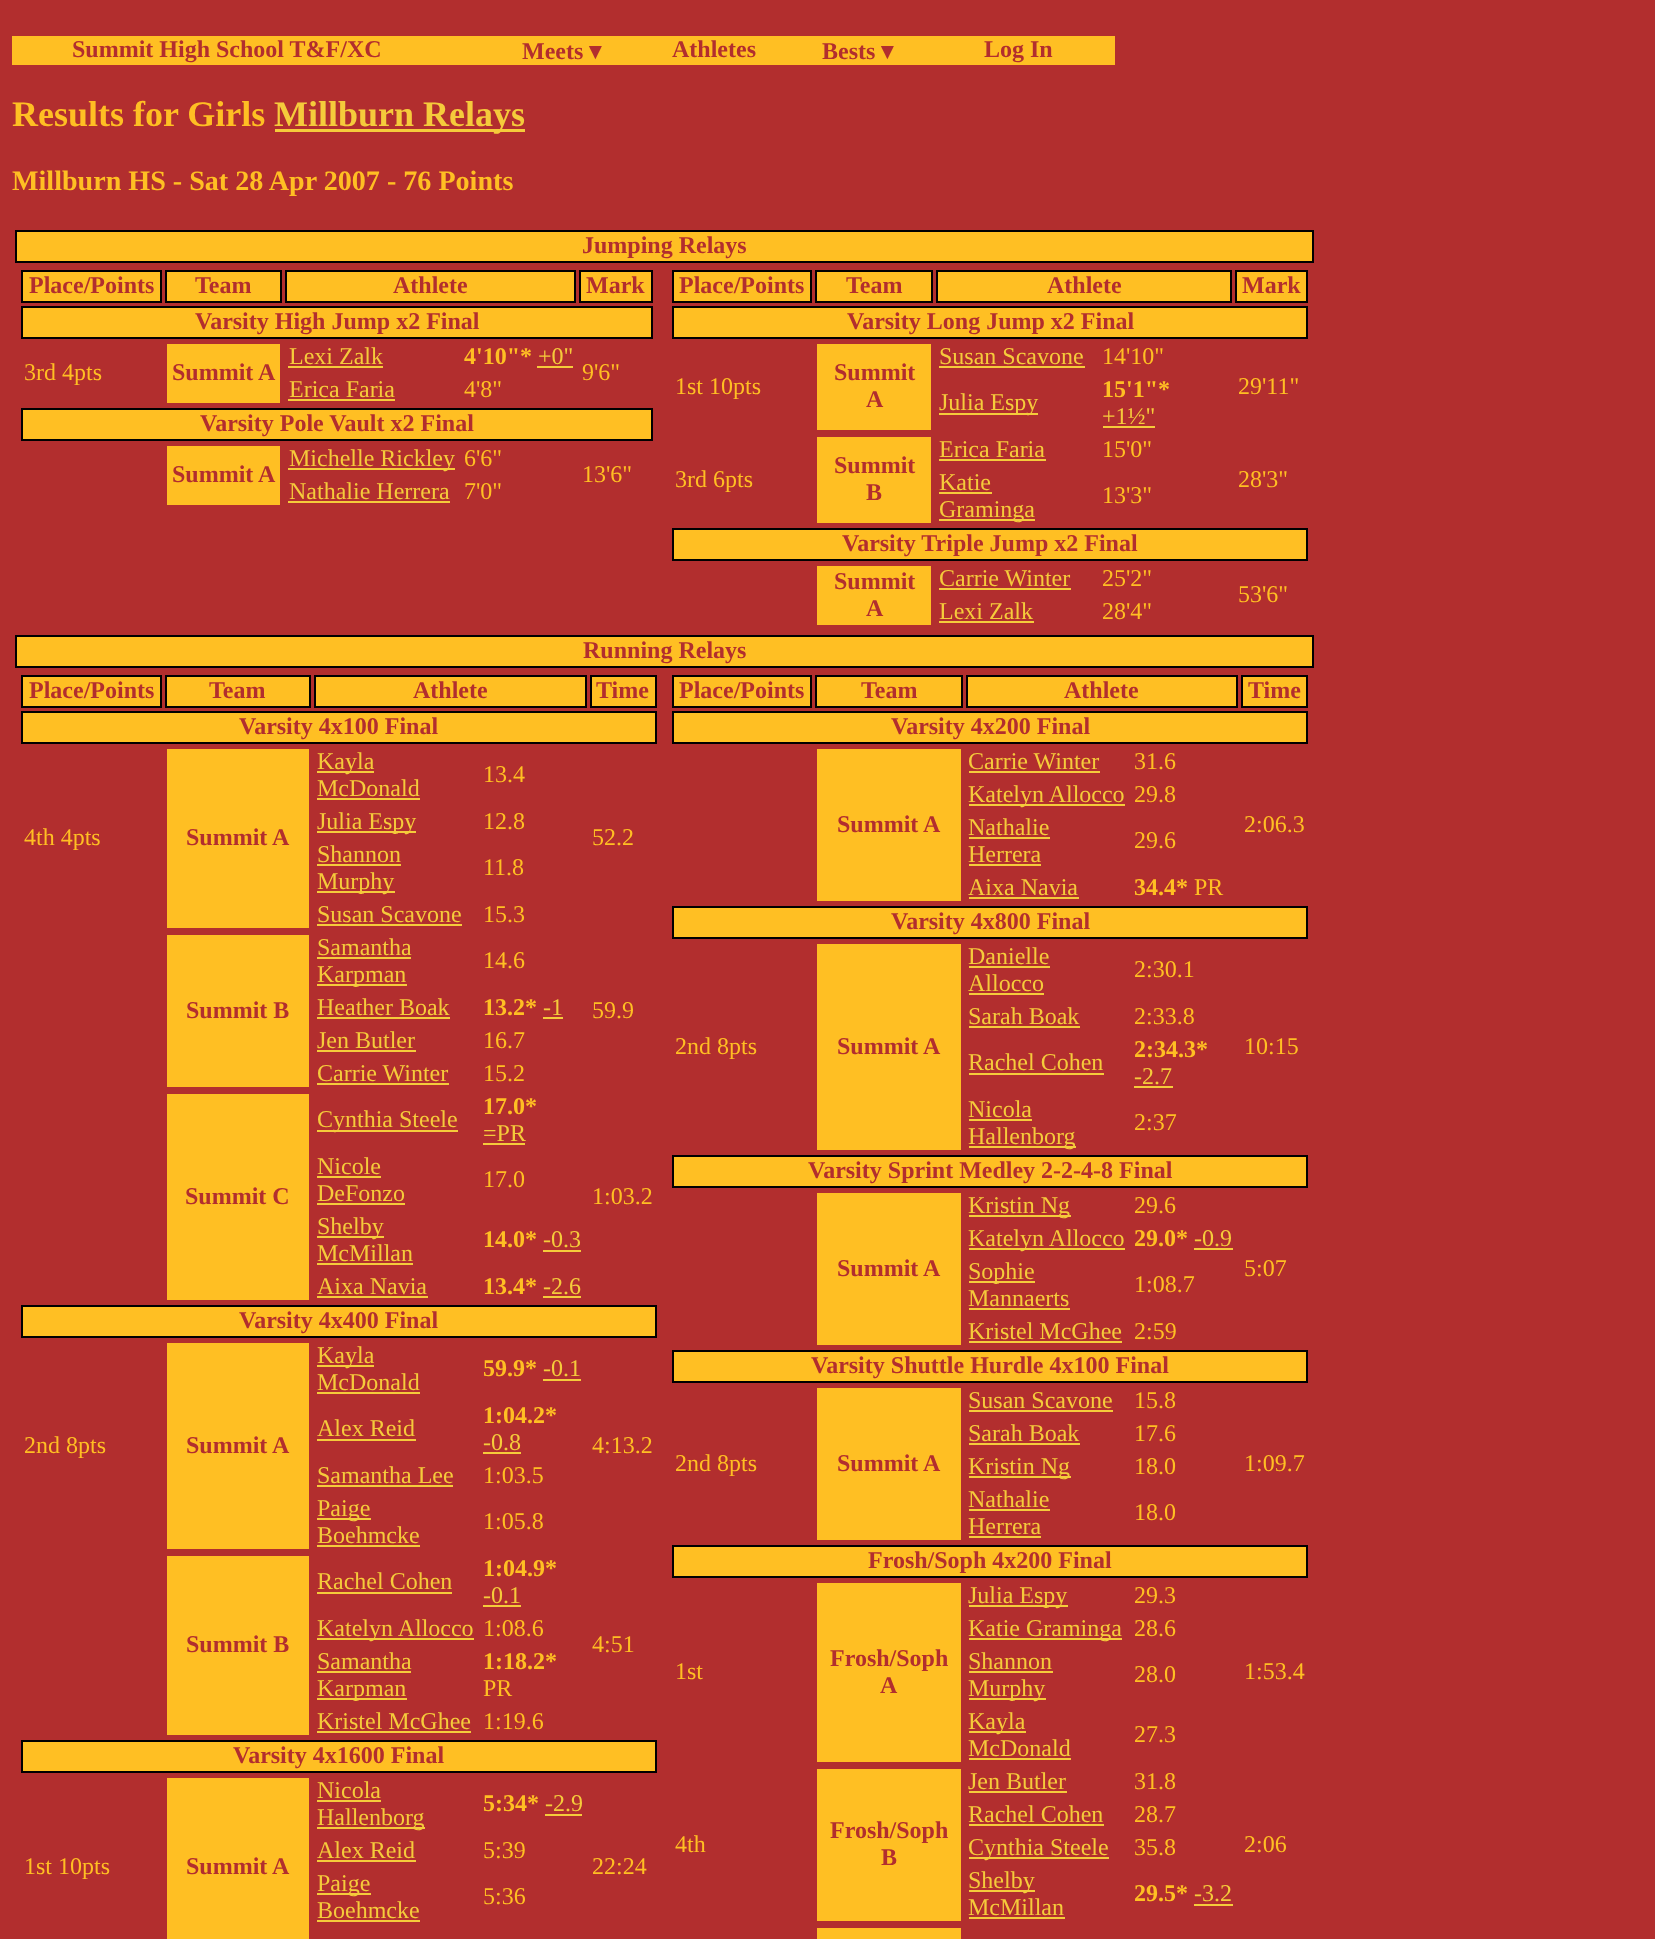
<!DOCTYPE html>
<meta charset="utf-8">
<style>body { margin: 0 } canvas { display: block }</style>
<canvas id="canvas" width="1655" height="1939"></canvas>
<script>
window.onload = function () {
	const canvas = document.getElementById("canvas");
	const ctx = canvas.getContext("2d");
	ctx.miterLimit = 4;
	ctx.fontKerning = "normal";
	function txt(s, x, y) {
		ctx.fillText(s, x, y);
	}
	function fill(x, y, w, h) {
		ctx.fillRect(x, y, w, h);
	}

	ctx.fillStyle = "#B22E2E";
	fill(0, 0, 1655, 1939);
	ctx.fillStyle = "#FFBF23";
	fill(12, 36, 1103, 29);
	ctx.fillStyle = "#F5CB3B";
	fill(275, 129, 250, 3);
	ctx.fillStyle = "#FFBF23";
	ctx.beginPath();
	ctx.rect(16, 231, 1297, 31);
	ctx.fill();
	ctx.strokeStyle = "#000000";
	ctx.lineWidth = 2;
	ctx.stroke();
	ctx.beginPath();
	ctx.rect(22, 271, 139, 31);
	ctx.fill();
	ctx.stroke();
	ctx.beginPath();
	ctx.rect(166, 271, 115, 31);
	ctx.fill();
	ctx.stroke();
	ctx.beginPath();
	ctx.rect(286, 271, 289, 31);
	ctx.fill();
	ctx.stroke();
	ctx.beginPath();
	ctx.rect(580, 271, 72, 31);
	ctx.fill();
	ctx.stroke();
	ctx.beginPath();
	ctx.rect(22, 307, 630, 31);
	ctx.fill();
	ctx.stroke();
	ctx.fillStyle = "#F5CB3B";
	fill(288, 366, 95, 2);
	fill(537, 366, 36, 2);
	ctx.fillStyle = "#FFBF23";
	fill(167, 344, 113, 59);
	ctx.fillStyle = "#F5CB3B";
	fill(288, 399, 107, 2);
	ctx.fillStyle = "#FFBF23";
	ctx.beginPath();
	ctx.rect(22, 409, 630, 31);
	ctx.fill();
	ctx.stroke();
	ctx.fillStyle = "#F5CB3B";
	fill(288, 468, 167, 2);
	ctx.fillStyle = "#FFBF23";
	fill(167, 446, 113, 59);
	ctx.fillStyle = "#F5CB3B";
	fill(288, 501, 162, 2);
	ctx.fillStyle = "#FFBF23";
	ctx.beginPath();
	ctx.rect(673, 271, 138, 31);
	ctx.fill();
	ctx.stroke();
	ctx.beginPath();
	ctx.rect(816, 271, 116, 31);
	ctx.fill();
	ctx.stroke();
	ctx.beginPath();
	ctx.rect(937, 271, 294, 31);
	ctx.fill();
	ctx.stroke();
	ctx.beginPath();
	ctx.rect(1236, 271, 71, 31);
	ctx.fill();
	ctx.stroke();
	ctx.beginPath();
	ctx.rect(673, 307, 634, 31);
	ctx.fill();
	ctx.stroke();
	ctx.fillStyle = "#F5CB3B";
	fill(939, 366, 146, 2);
	ctx.fillStyle = "#FFBF23";
	fill(817, 344, 114, 86);
	ctx.fillStyle = "#F5CB3B";
	fill(939, 413, 99, 2);
	fill(1103, 426, 52, 2);
	fill(939, 459, 107, 2);
	ctx.fillStyle = "#FFBF23";
	fill(817, 437, 114, 86);
	ctx.fillStyle = "#F5CB3B";
	fill(939, 492, 53, 2);
	fill(939, 519, 96, 2);
	ctx.fillStyle = "#FFBF23";
	ctx.beginPath();
	ctx.rect(673, 529, 634, 31);
	ctx.fill();
	ctx.stroke();
	fill(817, 566, 114, 59);
	ctx.fillStyle = "#F5CB3B";
	fill(939, 588, 132, 2);
	fill(939, 621, 95, 2);
	ctx.fillStyle = "#FFBF23";
	ctx.beginPath();
	ctx.rect(16, 636, 1297, 31);
	ctx.fill();
	ctx.stroke();
	ctx.beginPath();
	ctx.rect(22, 676, 139, 31);
	ctx.fill();
	ctx.stroke();
	ctx.beginPath();
	ctx.rect(166, 676, 144, 31);
	ctx.fill();
	ctx.stroke();
	ctx.beginPath();
	ctx.rect(315, 676, 271, 31);
	ctx.fill();
	ctx.stroke();
	ctx.beginPath();
	ctx.rect(591, 676, 65, 31);
	ctx.fill();
	ctx.stroke();
	ctx.beginPath();
	ctx.rect(22, 712, 634, 31);
	ctx.fill();
	ctx.stroke();
	ctx.fillStyle = "#F5CB3B";
	fill(317, 771, 57, 2);
	fill(317, 798, 103, 2);
	ctx.fillStyle = "#FFBF23";
	fill(167, 749, 142, 179);
	ctx.fillStyle = "#F5CB3B";
	fill(317, 831, 99, 2);
	fill(317, 864, 84, 2);
	fill(317, 891, 78, 2);
	fill(317, 924, 145, 2);
	fill(317, 957, 94, 2);
	fill(317, 984, 90, 2);
	ctx.fillStyle = "#FFBF23";
	fill(167, 935, 142, 152);
	ctx.fillStyle = "#F5CB3B";
	fill(317, 1017, 133, 2);
	fill(543, 1017, 20, 2);
	fill(317, 1050, 99, 2);
	fill(317, 1083, 132, 2);
	fill(317, 1130, 141, 2);
	fill(483, 1143, 42, 2);
	ctx.fillStyle = "#FFBF23";
	fill(167, 1094, 142, 206);
	ctx.fillStyle = "#F5CB3B";
	fill(317, 1176, 64, 2);
	fill(317, 1203, 88, 2);
	fill(317, 1236, 67, 2);
	fill(317, 1263, 96, 2);
	fill(543, 1250, 38, 2);
	fill(317, 1296, 111, 2);
	fill(543, 1296, 38, 2);
	ctx.fillStyle = "#FFBF23";
	ctx.beginPath();
	ctx.rect(22, 1306, 634, 31);
	ctx.fill();
	ctx.stroke();
	ctx.fillStyle = "#F5CB3B";
	fill(317, 1365, 57, 2);
	fill(317, 1392, 103, 2);
	fill(543, 1379, 38, 2);
	ctx.fillStyle = "#FFBF23";
	fill(167, 1343, 142, 206);
	ctx.fillStyle = "#F5CB3B";
	fill(317, 1439, 99, 2);
	fill(483, 1452, 38, 2);
	fill(317, 1485, 136, 2);
	fill(317, 1518, 54, 2);
	fill(317, 1545, 103, 2);
	fill(317, 1592, 135, 2);
	fill(483, 1605, 38, 2);
	ctx.fillStyle = "#FFBF23";
	fill(167, 1556, 142, 179);
	ctx.fillStyle = "#F5CB3B";
	fill(317, 1638, 157, 2);
	fill(317, 1671, 94, 2);
	fill(317, 1698, 90, 2);
	fill(317, 1731, 154, 2);
	ctx.fillStyle = "#FFBF23";
	ctx.beginPath();
	ctx.rect(22, 1741, 634, 31);
	ctx.fill();
	ctx.stroke();
	ctx.fillStyle = "#F5CB3B";
	fill(317, 1800, 64, 2);
	fill(317, 1827, 108, 2);
	fill(545, 1814, 37, 2);
	ctx.fillStyle = "#FFBF23";
	fill(167, 1778, 142, 161);
	ctx.fillStyle = "#F5CB3B";
	fill(317, 1860, 99, 2);
	fill(317, 1893, 54, 2);
	fill(317, 1920, 103, 2);
	ctx.fillStyle = "#FFBF23";
	ctx.beginPath();
	ctx.rect(673, 676, 138, 31);
	ctx.fill();
	ctx.stroke();
	ctx.beginPath();
	ctx.rect(816, 676, 146, 31);
	ctx.fill();
	ctx.stroke();
	ctx.beginPath();
	ctx.rect(967, 676, 270, 31);
	ctx.fill();
	ctx.stroke();
	ctx.beginPath();
	ctx.rect(1242, 676, 65, 31);
	ctx.fill();
	ctx.stroke();
	ctx.beginPath();
	ctx.rect(673, 712, 634, 31);
	ctx.fill();
	ctx.stroke();
	ctx.fillStyle = "#F5CB3B";
	fill(969, 771, 131, 2);
	ctx.fillStyle = "#FFBF23";
	fill(817, 749, 144, 152);
	ctx.fillStyle = "#F5CB3B";
	fill(969, 804, 156, 2);
	fill(969, 837, 81, 2);
	fill(969, 864, 72, 2);
	fill(969, 897, 110, 2);
	ctx.fillStyle = "#FFBF23";
	ctx.beginPath();
	ctx.rect(673, 907, 634, 31);
	ctx.fill();
	ctx.stroke();
	ctx.fillStyle = "#F5CB3B";
	fill(969, 966, 81, 2);
	fill(969, 993, 75, 2);
	ctx.fillStyle = "#FFBF23";
	fill(817, 944, 144, 206);
	ctx.fillStyle = "#F5CB3B";
	fill(969, 1026, 111, 2);
	fill(969, 1073, 135, 2);
	fill(1134, 1086, 39, 2);
	fill(969, 1119, 63, 2);
	fill(969, 1146, 107, 2);
	ctx.fillStyle = "#FFBF23";
	ctx.beginPath();
	ctx.rect(673, 1156, 634, 31);
	ctx.fill();
	ctx.stroke();
	ctx.fillStyle = "#F5CB3B";
	fill(969, 1215, 102, 2);
	ctx.fillStyle = "#FFBF23";
	fill(817, 1193, 144, 152);
	ctx.fillStyle = "#F5CB3B";
	fill(969, 1248, 156, 2);
	fill(1194, 1248, 39, 2);
	fill(969, 1281, 66, 2);
	fill(969, 1308, 101, 2);
	fill(969, 1341, 153, 2);
	ctx.fillStyle = "#FFBF23";
	ctx.beginPath();
	ctx.rect(673, 1351, 634, 31);
	ctx.fill();
	ctx.stroke();
	ctx.fillStyle = "#F5CB3B";
	fill(969, 1410, 144, 2);
	ctx.fillStyle = "#FFBF23";
	fill(817, 1388, 144, 152);
	ctx.fillStyle = "#F5CB3B";
	fill(969, 1443, 111, 2);
	fill(969, 1476, 102, 2);
	fill(969, 1509, 81, 2);
	fill(969, 1536, 72, 2);
	ctx.fillStyle = "#FFBF23";
	ctx.beginPath();
	ctx.rect(673, 1546, 634, 31);
	ctx.fill();
	ctx.stroke();
	ctx.fillStyle = "#F5CB3B";
	fill(969, 1605, 99, 2);
	ctx.fillStyle = "#FFBF23";
	fill(817, 1583, 144, 179);
	ctx.fillStyle = "#F5CB3B";
	fill(969, 1638, 153, 2);
	fill(969, 1671, 84, 2);
	fill(969, 1698, 77, 2);
	fill(969, 1731, 57, 2);
	fill(969, 1758, 102, 2);
	fill(969, 1791, 98, 2);
	ctx.fillStyle = "#FFBF23";
	fill(817, 1769, 144, 152);
	ctx.fillStyle = "#F5CB3B";
	fill(969, 1824, 135, 2);
	fill(969, 1857, 140, 2);
	fill(969, 1890, 66, 2);
	fill(969, 1917, 96, 2);
	fill(1194, 1904, 39, 2);
	ctx.fillStyle = "#FFBF23";
	fill(817, 1928, 144, 11);
	ctx.font = "bold 24px Liberation Serif";
	ctx.fillStyle = "#B22E2E";
	txt("Summit High School T&F/XC", 72, 57);
	txt("Meets", 522, 59);
	ctx.font = "bold 24px DejaVu Sans";
	txt("▾", 589, 59);
	ctx.font = "bold 24px Liberation Serif";
	txt("Athletes", 672, 57);
	txt("Bests", 822, 59);
	ctx.font = "bold 24px DejaVu Sans";
	txt("▾", 881, 59);
	ctx.font = "bold 24px Liberation Serif";
	txt("Log In", 984, 57);
	ctx.font = "bold 36px Liberation Serif";
	ctx.fillStyle = "#FFBF23";
	txt("Results for Girls", 12, 126);
	ctx.fillStyle = "#F5CB3B";
	txt("Millburn Relays", 274, 126);
	ctx.font = "bold 28.1px Liberation Serif";
	ctx.fillStyle = "#FFBF23";
	txt("Millburn HS - Sat 28 Apr 2007 - 76 Points", 12, 190);
	ctx.font = "bold 24px Liberation Serif";
	ctx.fillStyle = "#B22E2E";
	txt("Jumping Relays", 582, 253);
	txt("Place/Points", 29, 293);
	txt("Team", 195, 293);
	txt("Athlete", 393, 293);
	txt("Mark", 586, 293);
	txt("Varsity High Jump x2 Final", 195, 329);
	ctx.font = "24px Liberation Serif";
	ctx.fillStyle = "#F5CB3B";
	txt("Lexi Zalk", 289, 364);
	ctx.font = "bold 24px Liberation Serif";
	ctx.fillStyle = "#FFBF23";
	txt("4'10\"*", 464, 364);
	ctx.font = "24px Liberation Serif";
	ctx.fillStyle = "#F5CB3B";
	txt("+0\"", 538, 364);
	ctx.fillStyle = "#FFBF23";
	txt("3rd 4pts", 24, 380);
	ctx.font = "bold 24px Liberation Serif";
	ctx.fillStyle = "#B22E2E";
	txt("Summit A", 172, 380);
	ctx.font = "24px Liberation Serif";
	ctx.fillStyle = "#FFBF23";
	txt("9'6\"", 582, 380);
	ctx.fillStyle = "#F5CB3B";
	txt("Erica Faria", 289, 397);
	ctx.fillStyle = "#FFBF23";
	txt("4'8\"", 464, 397);
	ctx.font = "bold 24px Liberation Serif";
	ctx.fillStyle = "#B22E2E";
	txt("Varsity Pole Vault x2 Final", 200, 431);
	ctx.font = "24px Liberation Serif";
	ctx.fillStyle = "#F5CB3B";
	txt("Michelle Rickley", 289, 466);
	ctx.fillStyle = "#FFBF23";
	txt("6'6\"", 464, 466);
	ctx.font = "bold 24px Liberation Serif";
	ctx.fillStyle = "#B22E2E";
	txt("Summit A", 172, 482);
	ctx.font = "24px Liberation Serif";
	ctx.fillStyle = "#FFBF23";
	txt("13'6\"", 582, 482);
	ctx.fillStyle = "#F5CB3B";
	txt("Nathalie Herrera", 289, 499);
	ctx.fillStyle = "#FFBF23";
	txt("7'0\"", 464, 499);
	ctx.font = "bold 24px Liberation Serif";
	ctx.fillStyle = "#B22E2E";
	txt("Place/Points", 679, 293);
	txt("Team", 846, 293);
	txt("Athlete", 1047, 293);
	txt("Mark", 1242, 293);
	txt("Varsity Long Jump x2 Final", 847, 329);
	ctx.font = "24px Liberation Serif";
	ctx.fillStyle = "#F5CB3B";
	txt("Susan Scavone", 939, 364);
	ctx.fillStyle = "#FFBF23";
	txt("14'10\"", 1102, 364);
	txt("1st 10pts", 675, 394);
	ctx.font = "bold 24px Liberation Serif";
	ctx.fillStyle = "#B22E2E";
	txt("Summit", 834, 380);
	txt("A", 866, 407);
	ctx.font = "24px Liberation Serif";
	ctx.fillStyle = "#FFBF23";
	txt("29'11\"", 1238, 394);
	ctx.fillStyle = "#F5CB3B";
	txt("Julia Espy", 939, 410);
	ctx.font = "bold 24px Liberation Serif";
	ctx.fillStyle = "#FFBF23";
	txt("15'1\"*", 1102, 397);
	ctx.font = "24px Liberation Serif";
	ctx.fillStyle = "#F5CB3B";
	txt("+1½\"", 1102, 424);
	txt("Erica Faria", 939, 457);
	ctx.fillStyle = "#FFBF23";
	txt("15'0\"", 1102, 457);
	txt("3rd 6pts", 675, 487);
	ctx.font = "bold 24px Liberation Serif";
	ctx.fillStyle = "#B22E2E";
	txt("Summit", 834, 473);
	txt("B", 866, 500);
	ctx.font = "24px Liberation Serif";
	ctx.fillStyle = "#FFBF23";
	txt("28'3\"", 1238, 487);
	ctx.fillStyle = "#F5CB3B";
	txt("Katie", 939, 490);
	txt("Graminga", 939, 517);
	ctx.fillStyle = "#FFBF23";
	txt("13'3\"", 1102, 503);
	ctx.font = "bold 24px Liberation Serif";
	ctx.fillStyle = "#B22E2E";
	txt("Varsity Triple Jump x2 Final", 842, 551);
	txt("Summit", 834, 589);
	txt("A", 866, 616);
	ctx.font = "24px Liberation Serif";
	ctx.fillStyle = "#F5CB3B";
	txt("Carrie Winter", 939, 586);
	ctx.fillStyle = "#FFBF23";
	txt("25'2\"", 1102, 586);
	txt("53'6\"", 1238, 602);
	ctx.fillStyle = "#F5CB3B";
	txt("Lexi Zalk", 939, 619);
	ctx.fillStyle = "#FFBF23";
	txt("28'4\"", 1102, 619);
	ctx.font = "bold 24px Liberation Serif";
	ctx.fillStyle = "#B22E2E";
	txt("Running Relays", 583, 658);
	txt("Place/Points", 29, 698);
	txt("Team", 209, 698);
	txt("Athlete", 413, 698);
	txt("Time", 596, 698);
	txt("Varsity 4x100 Final", 239, 734);
	ctx.font = "24px Liberation Serif";
	ctx.fillStyle = "#F5CB3B";
	txt("Kayla", 317, 769);
	txt("McDonald", 317, 796);
	ctx.fillStyle = "#FFBF23";
	txt("13.4", 483, 782);
	txt("4th 4pts", 24, 845);
	ctx.font = "bold 24px Liberation Serif";
	ctx.fillStyle = "#B22E2E";
	txt("Summit A", 186, 845);
	ctx.font = "24px Liberation Serif";
	ctx.fillStyle = "#FFBF23";
	txt("52.2", 592, 845);
	ctx.fillStyle = "#F5CB3B";
	txt("Julia Espy", 317, 829);
	ctx.fillStyle = "#FFBF23";
	txt("12.8", 483, 829);
	ctx.fillStyle = "#F5CB3B";
	txt("Shannon", 317, 862);
	txt("Murphy", 317, 889);
	ctx.fillStyle = "#FFBF23";
	txt("11.8", 483, 875);
	ctx.fillStyle = "#F5CB3B";
	txt("Susan Scavone", 317, 922);
	ctx.fillStyle = "#FFBF23";
	txt("15.3", 483, 922);
	ctx.fillStyle = "#F5CB3B";
	txt("Samantha", 317, 955);
	txt("Karpman", 317, 982);
	ctx.fillStyle = "#FFBF23";
	txt("14.6", 483, 968);
	ctx.font = "bold 24px Liberation Serif";
	ctx.fillStyle = "#B22E2E";
	txt("Summit B", 186, 1018);
	ctx.font = "24px Liberation Serif";
	ctx.fillStyle = "#FFBF23";
	txt("59.9", 592, 1018);
	ctx.fillStyle = "#F5CB3B";
	txt("Heather Boak", 317, 1015);
	ctx.font = "bold 24px Liberation Serif";
	ctx.fillStyle = "#FFBF23";
	txt("13.2*", 483, 1015);
	ctx.font = "24px Liberation Serif";
	ctx.fillStyle = "#F5CB3B";
	txt("-1", 543, 1015);
	txt("Jen Butler", 317, 1048);
	ctx.fillStyle = "#FFBF23";
	txt("16.7", 483, 1048);
	ctx.fillStyle = "#F5CB3B";
	txt("Carrie Winter", 317, 1081);
	ctx.fillStyle = "#FFBF23";
	txt("15.2", 483, 1081);
	ctx.fillStyle = "#F5CB3B";
	txt("Cynthia Steele", 317, 1127);
	ctx.font = "bold 24px Liberation Serif";
	ctx.fillStyle = "#FFBF23";
	txt("17.0*", 483, 1114);
	ctx.font = "24px Liberation Serif";
	ctx.fillStyle = "#F5CB3B";
	txt("=PR", 483, 1141);
	ctx.font = "bold 24px Liberation Serif";
	ctx.fillStyle = "#B22E2E";
	txt("Summit C", 185, 1204);
	ctx.font = "24px Liberation Serif";
	ctx.fillStyle = "#FFBF23";
	txt("1:03.2", 592, 1204);
	ctx.fillStyle = "#F5CB3B";
	txt("Nicole", 317, 1174);
	txt("DeFonzo", 317, 1201);
	ctx.fillStyle = "#FFBF23";
	txt("17.0", 483, 1187);
	ctx.fillStyle = "#F5CB3B";
	txt("Shelby", 317, 1234);
	txt("McMillan", 317, 1261);
	ctx.font = "bold 24px Liberation Serif";
	ctx.fillStyle = "#FFBF23";
	txt("14.0*", 483, 1247);
	ctx.font = "24px Liberation Serif";
	ctx.fillStyle = "#F5CB3B";
	txt("-0.3", 543, 1247);
	txt("Aixa Navia", 317, 1294);
	ctx.font = "bold 24px Liberation Serif";
	ctx.fillStyle = "#FFBF23";
	txt("13.4*", 483, 1294);
	ctx.font = "24px Liberation Serif";
	ctx.fillStyle = "#F5CB3B";
	txt("-2.6", 543, 1294);
	ctx.font = "bold 24px Liberation Serif";
	ctx.fillStyle = "#B22E2E";
	txt("Varsity 4x400 Final", 239, 1328);
	ctx.font = "24px Liberation Serif";
	ctx.fillStyle = "#F5CB3B";
	txt("Kayla", 317, 1363);
	txt("McDonald", 317, 1390);
	ctx.font = "bold 24px Liberation Serif";
	ctx.fillStyle = "#FFBF23";
	txt("59.9*", 483, 1376);
	ctx.font = "24px Liberation Serif";
	ctx.fillStyle = "#F5CB3B";
	txt("-0.1", 543, 1376);
	ctx.fillStyle = "#FFBF23";
	txt("2nd 8pts", 24, 1453);
	ctx.font = "bold 24px Liberation Serif";
	ctx.fillStyle = "#B22E2E";
	txt("Summit A", 186, 1453);
	ctx.font = "24px Liberation Serif";
	ctx.fillStyle = "#FFBF23";
	txt("4:13.2", 592, 1453);
	ctx.fillStyle = "#F5CB3B";
	txt("Alex Reid", 317, 1436);
	ctx.font = "bold 24px Liberation Serif";
	ctx.fillStyle = "#FFBF23";
	txt("1:04.2*", 483, 1423);
	ctx.font = "24px Liberation Serif";
	ctx.fillStyle = "#F5CB3B";
	txt("-0.8", 483, 1450);
	txt("Samantha Lee", 317, 1483);
	ctx.fillStyle = "#FFBF23";
	txt("1:03.5", 483, 1483);
	ctx.fillStyle = "#F5CB3B";
	txt("Paige", 317, 1516);
	txt("Boehmcke", 317, 1543);
	ctx.fillStyle = "#FFBF23";
	txt("1:05.8", 483, 1529);
	ctx.fillStyle = "#F5CB3B";
	txt("Rachel Cohen", 317, 1589);
	ctx.font = "bold 24px Liberation Serif";
	ctx.fillStyle = "#FFBF23";
	txt("1:04.9*", 483, 1576);
	ctx.font = "24px Liberation Serif";
	ctx.fillStyle = "#F5CB3B";
	txt("-0.1", 483, 1603);
	ctx.font = "bold 24px Liberation Serif";
	ctx.fillStyle = "#B22E2E";
	txt("Summit B", 186, 1652);
	ctx.font = "24px Liberation Serif";
	ctx.fillStyle = "#FFBF23";
	txt("4:51", 592, 1652);
	ctx.fillStyle = "#F5CB3B";
	txt("Katelyn Allocco", 317, 1636);
	ctx.fillStyle = "#FFBF23";
	txt("1:08.6", 483, 1636);
	ctx.fillStyle = "#F5CB3B";
	txt("Samantha", 317, 1669);
	txt("Karpman", 317, 1696);
	ctx.font = "bold 24px Liberation Serif";
	ctx.fillStyle = "#FFBF23";
	txt("1:18.2*", 483, 1669);
	ctx.font = "24px Liberation Serif";
	txt("PR", 483, 1696);
	ctx.fillStyle = "#F5CB3B";
	txt("Kristel McGhee", 317, 1729);
	ctx.fillStyle = "#FFBF23";
	txt("1:19.6", 483, 1729);
	ctx.font = "bold 24px Liberation Serif";
	ctx.fillStyle = "#B22E2E";
	txt("Varsity 4x1600 Final", 233, 1763);
	ctx.font = "24px Liberation Serif";
	ctx.fillStyle = "#F5CB3B";
	txt("Nicola", 317, 1798);
	txt("Hallenborg", 317, 1825);
	ctx.font = "bold 24px Liberation Serif";
	ctx.fillStyle = "#FFBF23";
	txt("5:34*", 483, 1811);
	ctx.font = "24px Liberation Serif";
	ctx.fillStyle = "#F5CB3B";
	txt("-2.9", 545, 1811);
	ctx.fillStyle = "#FFBF23";
	txt("1st 10pts", 24, 1874);
	ctx.font = "bold 24px Liberation Serif";
	ctx.fillStyle = "#B22E2E";
	txt("Summit A", 186, 1874);
	ctx.font = "24px Liberation Serif";
	ctx.fillStyle = "#FFBF23";
	txt("22:24", 592, 1874);
	ctx.fillStyle = "#F5CB3B";
	txt("Alex Reid", 317, 1858);
	ctx.fillStyle = "#FFBF23";
	txt("5:39", 483, 1858);
	ctx.fillStyle = "#F5CB3B";
	txt("Paige", 317, 1891);
	txt("Boehmcke", 317, 1918);
	ctx.fillStyle = "#FFBF23";
	txt("5:36", 483, 1904);
	ctx.font = "bold 24px Liberation Serif";
	ctx.fillStyle = "#B22E2E";
	txt("Place/Points", 679, 698);
	txt("Team", 861, 698);
	txt("Athlete", 1064, 698);
	txt("Time", 1248, 698);
	txt("Varsity 4x200 Final", 891, 734);
	ctx.font = "24px Liberation Serif";
	ctx.fillStyle = "#F5CB3B";
	txt("Carrie Winter", 968, 769);
	ctx.fillStyle = "#FFBF23";
	txt("31.6", 1134, 769);
	ctx.font = "bold 24px Liberation Serif";
	ctx.fillStyle = "#B22E2E";
	txt("Summit A", 837, 832);
	ctx.font = "24px Liberation Serif";
	ctx.fillStyle = "#FFBF23";
	txt("2:06.3", 1244, 832);
	ctx.fillStyle = "#F5CB3B";
	txt("Katelyn Allocco", 968, 802);
	ctx.fillStyle = "#FFBF23";
	txt("29.8", 1134, 802);
	ctx.fillStyle = "#F5CB3B";
	txt("Nathalie", 968, 835);
	txt("Herrera", 968, 862);
	ctx.fillStyle = "#FFBF23";
	txt("29.6", 1134, 848);
	ctx.fillStyle = "#F5CB3B";
	txt("Aixa Navia", 968, 895);
	ctx.font = "bold 24px Liberation Serif";
	ctx.fillStyle = "#FFBF23";
	txt("34.4*", 1134, 895);
	ctx.font = "24px Liberation Serif";
	txt("PR", 1194, 895);
	ctx.font = "bold 24px Liberation Serif";
	ctx.fillStyle = "#B22E2E";
	txt("Varsity 4x800 Final", 891, 929);
	ctx.font = "24px Liberation Serif";
	ctx.fillStyle = "#F5CB3B";
	txt("Danielle", 968, 964);
	txt("Allocco", 968, 991);
	ctx.fillStyle = "#FFBF23";
	txt("2:30.1", 1134, 977);
	txt("2nd 8pts", 675, 1054);
	ctx.font = "bold 24px Liberation Serif";
	ctx.fillStyle = "#B22E2E";
	txt("Summit A", 837, 1054);
	ctx.font = "24px Liberation Serif";
	ctx.fillStyle = "#FFBF23";
	txt("10:15", 1244, 1054);
	ctx.fillStyle = "#F5CB3B";
	txt("Sarah Boak", 968, 1024);
	ctx.fillStyle = "#FFBF23";
	txt("2:33.8", 1134, 1024);
	ctx.fillStyle = "#F5CB3B";
	txt("Rachel Cohen", 968, 1070);
	ctx.font = "bold 24px Liberation Serif";
	ctx.fillStyle = "#FFBF23";
	txt("2:34.3*", 1134, 1057);
	ctx.font = "24px Liberation Serif";
	ctx.fillStyle = "#F5CB3B";
	txt("-2.7", 1134, 1084);
	txt("Nicola", 968, 1117);
	txt("Hallenborg", 968, 1144);
	ctx.fillStyle = "#FFBF23";
	txt("2:37", 1134, 1130);
	ctx.font = "bold 24px Liberation Serif";
	ctx.fillStyle = "#B22E2E";
	txt("Varsity Sprint Medley 2-2-4-8 Final", 808, 1178);
	ctx.font = "24px Liberation Serif";
	ctx.fillStyle = "#F5CB3B";
	txt("Kristin Ng", 968, 1213);
	ctx.fillStyle = "#FFBF23";
	txt("29.6", 1134, 1213);
	ctx.font = "bold 24px Liberation Serif";
	ctx.fillStyle = "#B22E2E";
	txt("Summit A", 837, 1276);
	ctx.font = "24px Liberation Serif";
	ctx.fillStyle = "#FFBF23";
	txt("5:07", 1244, 1276);
	ctx.fillStyle = "#F5CB3B";
	txt("Katelyn Allocco", 968, 1246);
	ctx.font = "bold 24px Liberation Serif";
	ctx.fillStyle = "#FFBF23";
	txt("29.0*", 1134, 1246);
	ctx.font = "24px Liberation Serif";
	ctx.fillStyle = "#F5CB3B";
	txt("-0.9", 1194, 1246);
	txt("Sophie", 968, 1279);
	txt("Mannaerts", 968, 1306);
	ctx.fillStyle = "#FFBF23";
	txt("1:08.7", 1134, 1292);
	ctx.fillStyle = "#F5CB3B";
	txt("Kristel McGhee", 968, 1339);
	ctx.fillStyle = "#FFBF23";
	txt("2:59", 1134, 1339);
	ctx.font = "bold 24px Liberation Serif";
	ctx.fillStyle = "#B22E2E";
	txt("Varsity Shuttle Hurdle 4x100 Final", 811, 1373);
	ctx.font = "24px Liberation Serif";
	ctx.fillStyle = "#F5CB3B";
	txt("Susan Scavone", 968, 1408);
	ctx.fillStyle = "#FFBF23";
	txt("15.8", 1134, 1408);
	txt("2nd 8pts", 675, 1471);
	ctx.font = "bold 24px Liberation Serif";
	ctx.fillStyle = "#B22E2E";
	txt("Summit A", 837, 1471);
	ctx.font = "24px Liberation Serif";
	ctx.fillStyle = "#FFBF23";
	txt("1:09.7", 1244, 1471);
	ctx.fillStyle = "#F5CB3B";
	txt("Sarah Boak", 968, 1441);
	ctx.fillStyle = "#FFBF23";
	txt("17.6", 1134, 1441);
	ctx.fillStyle = "#F5CB3B";
	txt("Kristin Ng", 968, 1474);
	ctx.fillStyle = "#FFBF23";
	txt("18.0", 1134, 1474);
	ctx.fillStyle = "#F5CB3B";
	txt("Nathalie", 968, 1507);
	txt("Herrera", 968, 1534);
	ctx.fillStyle = "#FFBF23";
	txt("18.0", 1134, 1520);
	ctx.font = "bold 24px Liberation Serif";
	ctx.fillStyle = "#B22E2E";
	txt("Frosh/Soph 4x200 Final", 868, 1568);
	ctx.font = "24px Liberation Serif";
	ctx.fillStyle = "#F5CB3B";
	txt("Julia Espy", 968, 1603);
	ctx.fillStyle = "#FFBF23";
	txt("29.3", 1134, 1603);
	txt("1st", 675, 1679);
	ctx.font = "bold 24px Liberation Serif";
	ctx.fillStyle = "#B22E2E";
	txt("Frosh/Soph", 830, 1666);
	txt("A", 880, 1693);
	ctx.font = "24px Liberation Serif";
	ctx.fillStyle = "#FFBF23";
	txt("1:53.4", 1244, 1679);
	ctx.fillStyle = "#F5CB3B";
	txt("Katie Graminga", 968, 1636);
	ctx.fillStyle = "#FFBF23";
	txt("28.6", 1134, 1636);
	ctx.fillStyle = "#F5CB3B";
	txt("Shannon", 968, 1669);
	txt("Murphy", 968, 1696);
	ctx.fillStyle = "#FFBF23";
	txt("28.0", 1134, 1682);
	ctx.fillStyle = "#F5CB3B";
	txt("Kayla", 968, 1729);
	txt("McDonald", 968, 1756);
	ctx.fillStyle = "#FFBF23";
	txt("27.3", 1134, 1742);
	ctx.fillStyle = "#F5CB3B";
	txt("Jen Butler", 968, 1789);
	ctx.fillStyle = "#FFBF23";
	txt("31.8", 1134, 1789);
	txt("4th", 675, 1852);
	ctx.font = "bold 24px Liberation Serif";
	ctx.fillStyle = "#B22E2E";
	txt("Frosh/Soph", 830, 1838);
	txt("B", 881, 1865);
	ctx.font = "24px Liberation Serif";
	ctx.fillStyle = "#FFBF23";
	txt("2:06", 1244, 1852);
	ctx.fillStyle = "#F5CB3B";
	txt("Rachel Cohen", 968, 1822);
	ctx.fillStyle = "#FFBF23";
	txt("28.7", 1134, 1822);
	ctx.fillStyle = "#F5CB3B";
	txt("Cynthia Steele", 968, 1855);
	ctx.fillStyle = "#FFBF23";
	txt("35.8", 1134, 1855);
	ctx.fillStyle = "#F5CB3B";
	txt("Shelby", 968, 1888);
	txt("McMillan", 968, 1915);
	ctx.font = "bold 24px Liberation Serif";
	ctx.fillStyle = "#FFBF23";
	txt("29.5*", 1134, 1901);
	ctx.font = "24px Liberation Serif";
	ctx.fillStyle = "#F5CB3B";
	txt("-3.2", 1194, 1901);
};
</script>
